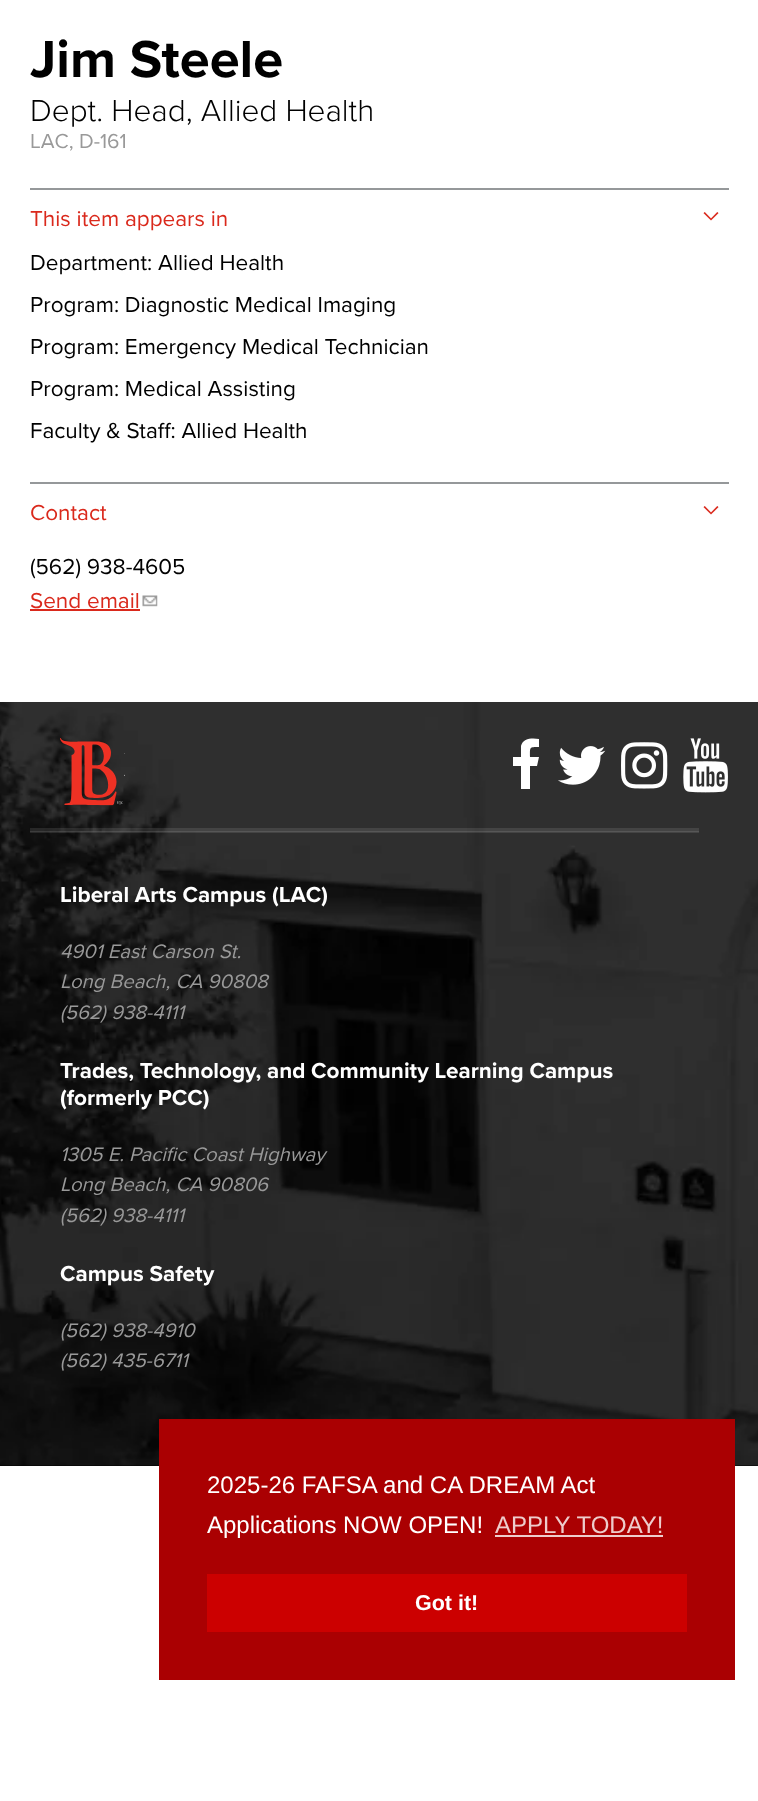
<!DOCTYPE html>
<meta charset="utf-8">
<style>body { margin: 0 } canvas { display: block }</style>
<canvas id="canvas" width="758" height="1801"></canvas>
<img id="img1" src="img_01.png" hidden>
<img id="img2" src="img_02.png" hidden>
<img id="img3" src="img_03.png" hidden>
<img id="img4" src="img_04.png" hidden>
<img id="img5" src="img_05.png" hidden>
<img id="img6" src="img_06.png" hidden>
<img id="img7" src="img_07.png" hidden>
<script>
window.onload = function () {
	const canvas = document.getElementById("canvas");
	const ctx = canvas.getContext("2d");
	ctx.miterLimit = 4;
	ctx.fontKerning = "normal";
	function txt(s, x, y) {
		ctx.fillText(s, x, y);
	}
	function fill(x, y, w, h) {
		ctx.fillRect(x, y, w, h);
	}
	function img(id, x, y, w, h) {
		ctx.drawImage(document.getElementById(id), x, y, w, h);
	}

	ctx.fillStyle = "#FFFFFF";
	fill(0, 0, 758, 1801);
	ctx.fillStyle = "#95989A";
	fill(30, 188, 699, 2);
	img("img1", 703, 212, 16, 9);
	fill(30, 482, 699, 2);
	img("img1", 703, 506, 16, 9);
	ctx.fillStyle = "#DA291C";
	fill(30, 609, 110, 2);
	img("img2", 142, 595, 16, 12);
	ctx.fillStyle = "#000000";
	fill(0, 1465, 758, 1);
	img("img3", 0, 702, 758, 764);
	img("img4", 60, 738, 65, 68);
	ctx.fillStyle = "#FFFFFF";
	ctx.beginPath();
	ctx.moveTo(539, 739);
	ctx.lineTo(539, 747);
	ctx.bezierCurveTo(529, 747, 530, 747, 530, 757);
	ctx.lineTo(539, 757);
	ctx.lineTo(537, 766);
	ctx.lineTo(530, 766);
	ctx.lineTo(530, 789);
	ctx.lineTo(521, 789);
	ctx.lineTo(521, 766);
	ctx.lineTo(513, 766);
	ctx.lineTo(513, 757);
	ctx.lineTo(521, 757);
	ctx.lineTo(521, 746);
	ctx.bezierCurveTo(523, 738, 532, 738, 539, 739);
	ctx.closePath();
	ctx.fill();
	img("img5", 558, 746, 48, 39);
	img("img6", 621, 742, 47, 47);
	img("img7", 683, 738, 45, 55);
	ctx.fillStyle = "rgba(255, 255, 255, 0.1)";
	fill(30, 828, 669, 2);
	fill(30, 830, 669, 2);
	fill(30, 831, 669, 2);
	ctx.fillStyle = "#AA0002";
	fill(159, 1419, 576, 261);
	ctx.fillStyle = "#EECCCC";
	fill(495, 1535, 168, 2);
	ctx.fillStyle = "#CC0000";
	fill(207, 1574, 480, 58);
	ctx.font = "bold 54px Proxima Nova";
	ctx.fillStyle = "#000000";
	txt("Jim Steele", 30, 77);
	ctx.font = "300 31.5px Proxima Nova";
	txt("Dept. Head, Allied Health", 30, 121);
	ctx.font = "21px Proxima Nova";
	ctx.fillStyle = "#999999";
	txt("LAC, D-161", 30, 148);
	ctx.font = "22.5px Proxima Nova";
	ctx.fillStyle = "#DA291C";
	txt("This item appears in", 30, 226);
	ctx.fillStyle = "#000000";
	txt("Department: Allied Health", 30, 270);
	txt("Program: Diagnostic Medical Imaging", 30, 312);
	txt("Program: Emergency Medical Technician", 30, 354);
	txt("Program: Medical Assisting", 30, 396);
	txt("Faculty & Staff: Allied Health", 30, 438);
	ctx.fillStyle = "#DA291C";
	txt("Contact", 30, 520);
	ctx.fillStyle = "#000000";
	txt("(562) 938-4605", 30, 574);
	ctx.fillStyle = "#DA291C";
	txt("Send email", 30, 608);
	ctx.font = "bold 22.5px Proxima Nova";
	ctx.fillStyle = "#FFFFFF";
	txt("Liberal Arts Campus (LAC)", 60, 902);
	ctx.font = "italic 20.25px Proxima Nova";
	ctx.fillStyle = "#999999";
	txt("4901 East Carson St.", 60, 958);
	txt("Long Beach, CA 90808", 60, 988);
	txt("(562) 938-4111", 60, 1019);
	ctx.font = "bold 22.5px Proxima Nova";
	ctx.fillStyle = "#FFFFFF";
	txt("Trades, Technology, and Community Learning Campus", 60, 1078);
	txt("(formerly PCC)", 60, 1105);
	ctx.font = "italic 20.25px Proxima Nova";
	ctx.fillStyle = "#999999";
	txt("1305 E. Pacific Coast Highway", 60, 1161);
	txt("Long Beach, CA 90806", 60, 1191);
	txt("(562) 938-4111", 60, 1222);
	ctx.font = "bold 22.5px Proxima Nova";
	ctx.fillStyle = "#FFFFFF";
	txt("Campus Safety", 60, 1281);
	ctx.font = "italic 20.25px Proxima Nova";
	ctx.fillStyle = "#999999";
	txt("(562) 938-4910", 60, 1337);
	txt("(562) 435-6711", 60, 1367);
	ctx.font = "24px Liberation Sans";
	ctx.fillStyle = "#FFFFFF";
	txt("2025-26 FAFSA and CA DREAM Act", 207, 1493);
	txt("Applications NOW OPEN!", 207, 1533);
	ctx.fillStyle = "#EECCCC";
	txt("APPLY TODAY!", 495, 1533);
	ctx.font = "bold 21.5px Liberation Sans";
	ctx.fillStyle = "#FFFFFF";
	txt("Got it!", 415, 1610);
};
</script>
